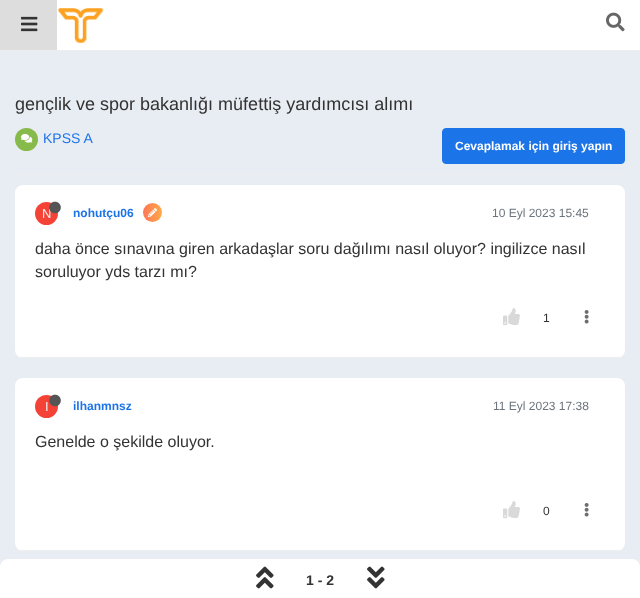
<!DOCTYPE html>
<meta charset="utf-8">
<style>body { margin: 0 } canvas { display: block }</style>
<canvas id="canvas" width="640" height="598"></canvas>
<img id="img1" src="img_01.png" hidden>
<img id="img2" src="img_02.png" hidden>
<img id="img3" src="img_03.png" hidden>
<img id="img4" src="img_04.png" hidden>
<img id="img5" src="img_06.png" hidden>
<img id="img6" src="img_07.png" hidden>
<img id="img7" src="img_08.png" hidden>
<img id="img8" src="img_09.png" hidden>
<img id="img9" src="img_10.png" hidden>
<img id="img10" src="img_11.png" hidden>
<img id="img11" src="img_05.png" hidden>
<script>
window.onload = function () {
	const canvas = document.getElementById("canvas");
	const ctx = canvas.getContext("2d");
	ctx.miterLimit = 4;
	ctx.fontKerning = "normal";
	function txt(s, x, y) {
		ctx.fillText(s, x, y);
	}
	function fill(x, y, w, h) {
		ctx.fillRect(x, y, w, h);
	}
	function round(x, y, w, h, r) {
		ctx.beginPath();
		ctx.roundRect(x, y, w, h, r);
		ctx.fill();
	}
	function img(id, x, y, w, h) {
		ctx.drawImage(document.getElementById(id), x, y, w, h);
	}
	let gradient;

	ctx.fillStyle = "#E8ECF3";
	fill(0, 0, 640, 598);
	ctx.fillStyle = "#FFFFFF";
	fill(57, 0, 583, 50);
	ctx.fillStyle = "#EEEEEE";
	fill(0, 50, 640, 1);
	ctx.fillStyle = "#DDDDDD";
	fill(0, 0, 57, 50);
	img("img1", 21, 16, 17, 16);
	img("img2", 58, 8, 46, 35);
	img("img3", 606, 12, 19, 20);
	ctx.fillStyle = "#EEEEEE";
	fill(15, 174, 610, 1);
	ctx.fillStyle = "#86BA4B";
	ctx.beginPath();
	ctx.arc(26.5, 139.5, 11.5, 0, Math.PI * 2);
	ctx.fill();
	img("img4", 21, 133, 12, 10);
	ctx.fillStyle = "#1C74E9";
	ctx.beginPath();
	ctx.roundRect(442.5, 128.5, 182, 35, 3.5);
	ctx.fill();
	ctx.strokeStyle = "#1C74E9";
	ctx.stroke();
	ctx.fillStyle = "#FFFFFF";
	round(15, 185, 610, 173, 8);
	ctx.fillStyle = "#EEEEEE";
	fill(19, 357, 602, 1);
	ctx.fillStyle = "#F44336";
	ctx.beginPath();
	ctx.arc(46.5, 213.5, 11.5, 0, Math.PI * 2);
	ctx.fill();
	gradient = ctx.createLinearGradient(143, 213, 162, 213);
	gradient.addColorStop(0, "#FF7755");
	gradient.addColorStop(1, "#FEAA4A");
	ctx.fillStyle = gradient;
	ctx.beginPath();
	ctx.arc(152.5, 212.5, 9.5, 0, Math.PI * 2);
	ctx.fill();
	img("img5", 148, 208, 9, 10);
	img("img6", 503, 308, 17, 18);
	img("img7", 584, 310, 5, 14);
	ctx.fillStyle = "#FFFFFF";
	round(15, 378, 610, 173, 8);
	ctx.fillStyle = "#EEEEEE";
	fill(19, 550, 602, 1);
	ctx.fillStyle = "#F44336";
	ctx.beginPath();
	ctx.arc(46.5, 406.5, 11.5, 0, Math.PI * 2);
	ctx.fill();
	img("img8", 49, 394, 12, 13);
	img("img6", 503, 501, 17, 18);
	img("img7", 584, 503, 5, 14);
	ctx.fillStyle = "#FFFFFF";
	ctx.beginPath();
	ctx.roundRect(0, 559, 640, 39, [8, 8, 0, 0]);
	ctx.fill();
	img("img9", 256, 566, 18, 23);
	img("img10", 367, 566, 18, 23);
	ctx.font = "18px Liberation Sans";
	ctx.fillStyle = "#333333";
	txt("gençlik ve spor bakanlığı müfettiş yardımcısı alımı", 15, 110);
	ctx.font = "14px Liberation Sans";
	ctx.fillStyle = "#1C74E9";
	txt("KPSS A", 43, 143);
	ctx.font = "bold 12px Liberation Sans";
	ctx.fillStyle = "#FFFFFF";
	txt("Cevaplamak için giriş yapın", 455, 150);
	ctx.font = "13px Liberation Sans";
	ctx.fillStyle = "#EEEEEE";
	txt("N", 42, 218);
	img("img11", 49, 201, 12, 13);
	ctx.font = "bold 12px Liberation Sans";
	ctx.fillStyle = "#1C74E9";
	txt("nohutçu06", 73, 217);
	ctx.font = "12px Liberation Sans";
	ctx.fillStyle = "#6C757D";
	txt("10 Eyl 2023 15:45", 492, 217);
	ctx.font = "16px Liberation Sans";
	ctx.fillStyle = "#333333";
	txt("daha önce sınavına giren arkadaşlar soru dağılımı nasıl oluyor? ingilizce nasıl", 35, 254);
	txt("soruluyor yds tarzı mı?", 35, 277);
	ctx.font = "12px Liberation Sans";
	txt("1", 543, 322);
	ctx.font = "13px Liberation Sans";
	ctx.fillStyle = "#EEEEEE";
	txt("I", 45, 411);
	ctx.font = "bold 12px Liberation Sans";
	ctx.fillStyle = "#1C74E9";
	txt("ilhanmnsz", 73, 410);
	ctx.font = "12px Liberation Sans";
	ctx.fillStyle = "#6C757D";
	txt("11 Eyl 2023 17:38", 493, 410);
	ctx.font = "16px Liberation Sans";
	ctx.fillStyle = "#333333";
	txt("Genelde o şekilde oluyor.", 35, 447);
	ctx.font = "12px Liberation Sans";
	txt("0", 543, 515);
	ctx.font = "bold 14px Liberation Sans";
	txt("1 - 2", 306, 585);
};
</script>
